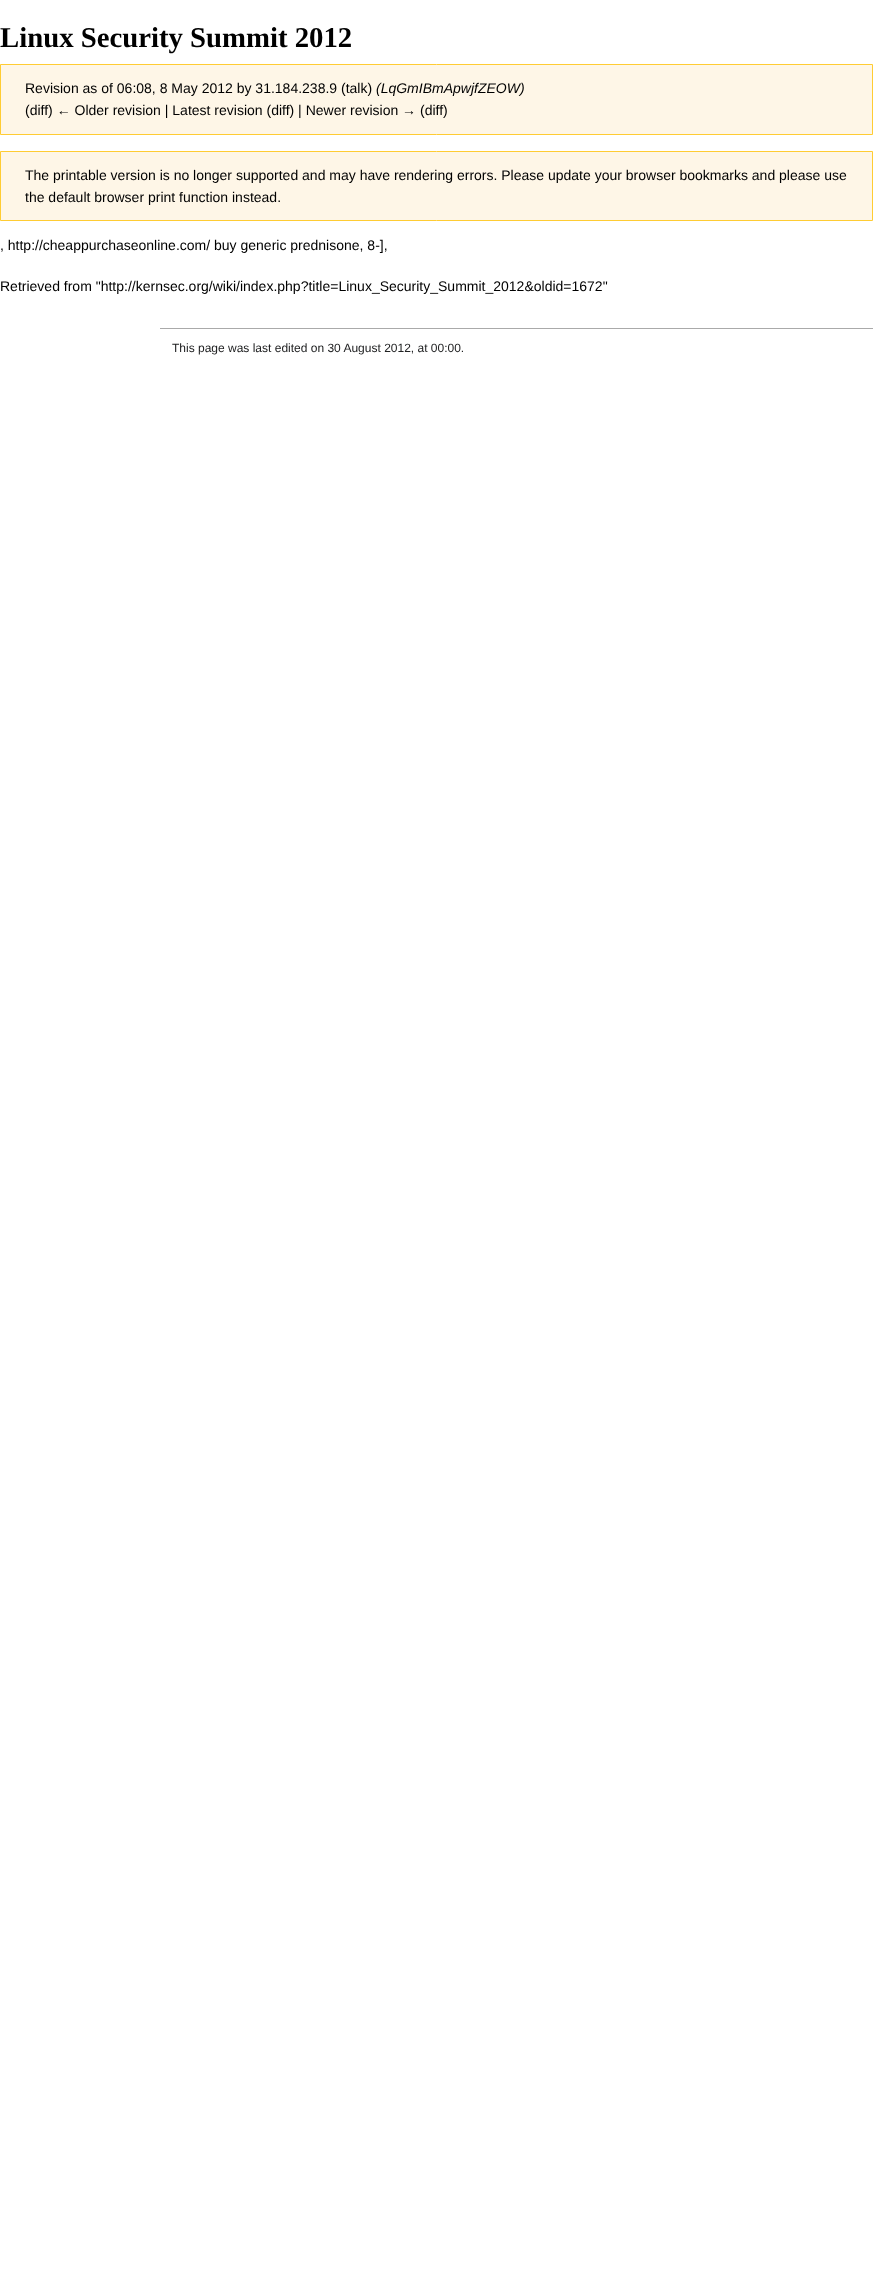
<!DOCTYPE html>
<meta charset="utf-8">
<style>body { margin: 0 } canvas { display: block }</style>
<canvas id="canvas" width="873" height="2286"></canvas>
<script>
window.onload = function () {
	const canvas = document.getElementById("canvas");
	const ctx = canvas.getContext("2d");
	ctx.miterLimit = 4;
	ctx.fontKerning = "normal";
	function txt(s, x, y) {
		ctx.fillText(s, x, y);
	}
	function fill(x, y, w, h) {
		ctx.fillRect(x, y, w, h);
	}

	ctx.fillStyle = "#FFFFFF";
	fill(0, 0, 873, 2286);
	ctx.fillStyle = "#FEF6E7";
	ctx.beginPath();
	ctx.rect(0.5, 64.5, 872, 70);
	ctx.fill();
	ctx.strokeStyle = "#FFCC33";
	ctx.stroke();
	ctx.beginPath();
	ctx.rect(0.5, 151.5, 872, 69);
	ctx.fill();
	ctx.stroke();
	ctx.fillStyle = "#AAAAAA";
	fill(160, 328, 713, 1);
	ctx.font = "bold 28.75px Liberation Serif";
	ctx.fillStyle = "#000000";
	txt("Linux Security Summit 2012", 0, 47);
	ctx.font = "14px Liberation Sans";
	txt("Revision as of 06:08, 8 May 2012 by 31.184.238.9 (talk)", 25, 93);
	ctx.font = "italic 14px Liberation Sans";
	txt("(LqGmIBmApwjfZEOW)", 376, 93);
	ctx.font = "14px Liberation Sans";
	txt("(diff) ← Older revision | Latest revision (diff) | Newer revision → (diff)", 25, 115);
	txt("The printable version is no longer supported and may have rendering errors. Please update your browser bookmarks and please use", 25, 180);
	txt("the default browser print function instead.", 25, 202);
	txt(", http://cheappurchaseonline.com/ buy generic prednisone, 8-],", 0, 250);
	txt("Retrieved from \"http://kernsec.org/wiki/index.php?title=Linux_Security_Summit_2012&oldid=1672\"", 0, 291);
	ctx.font = "12px Liberation Sans";
	ctx.fillStyle = "#202122";
	txt("This page was last edited on 30 August 2012, at 00:00.", 172, 352);
};
</script>
